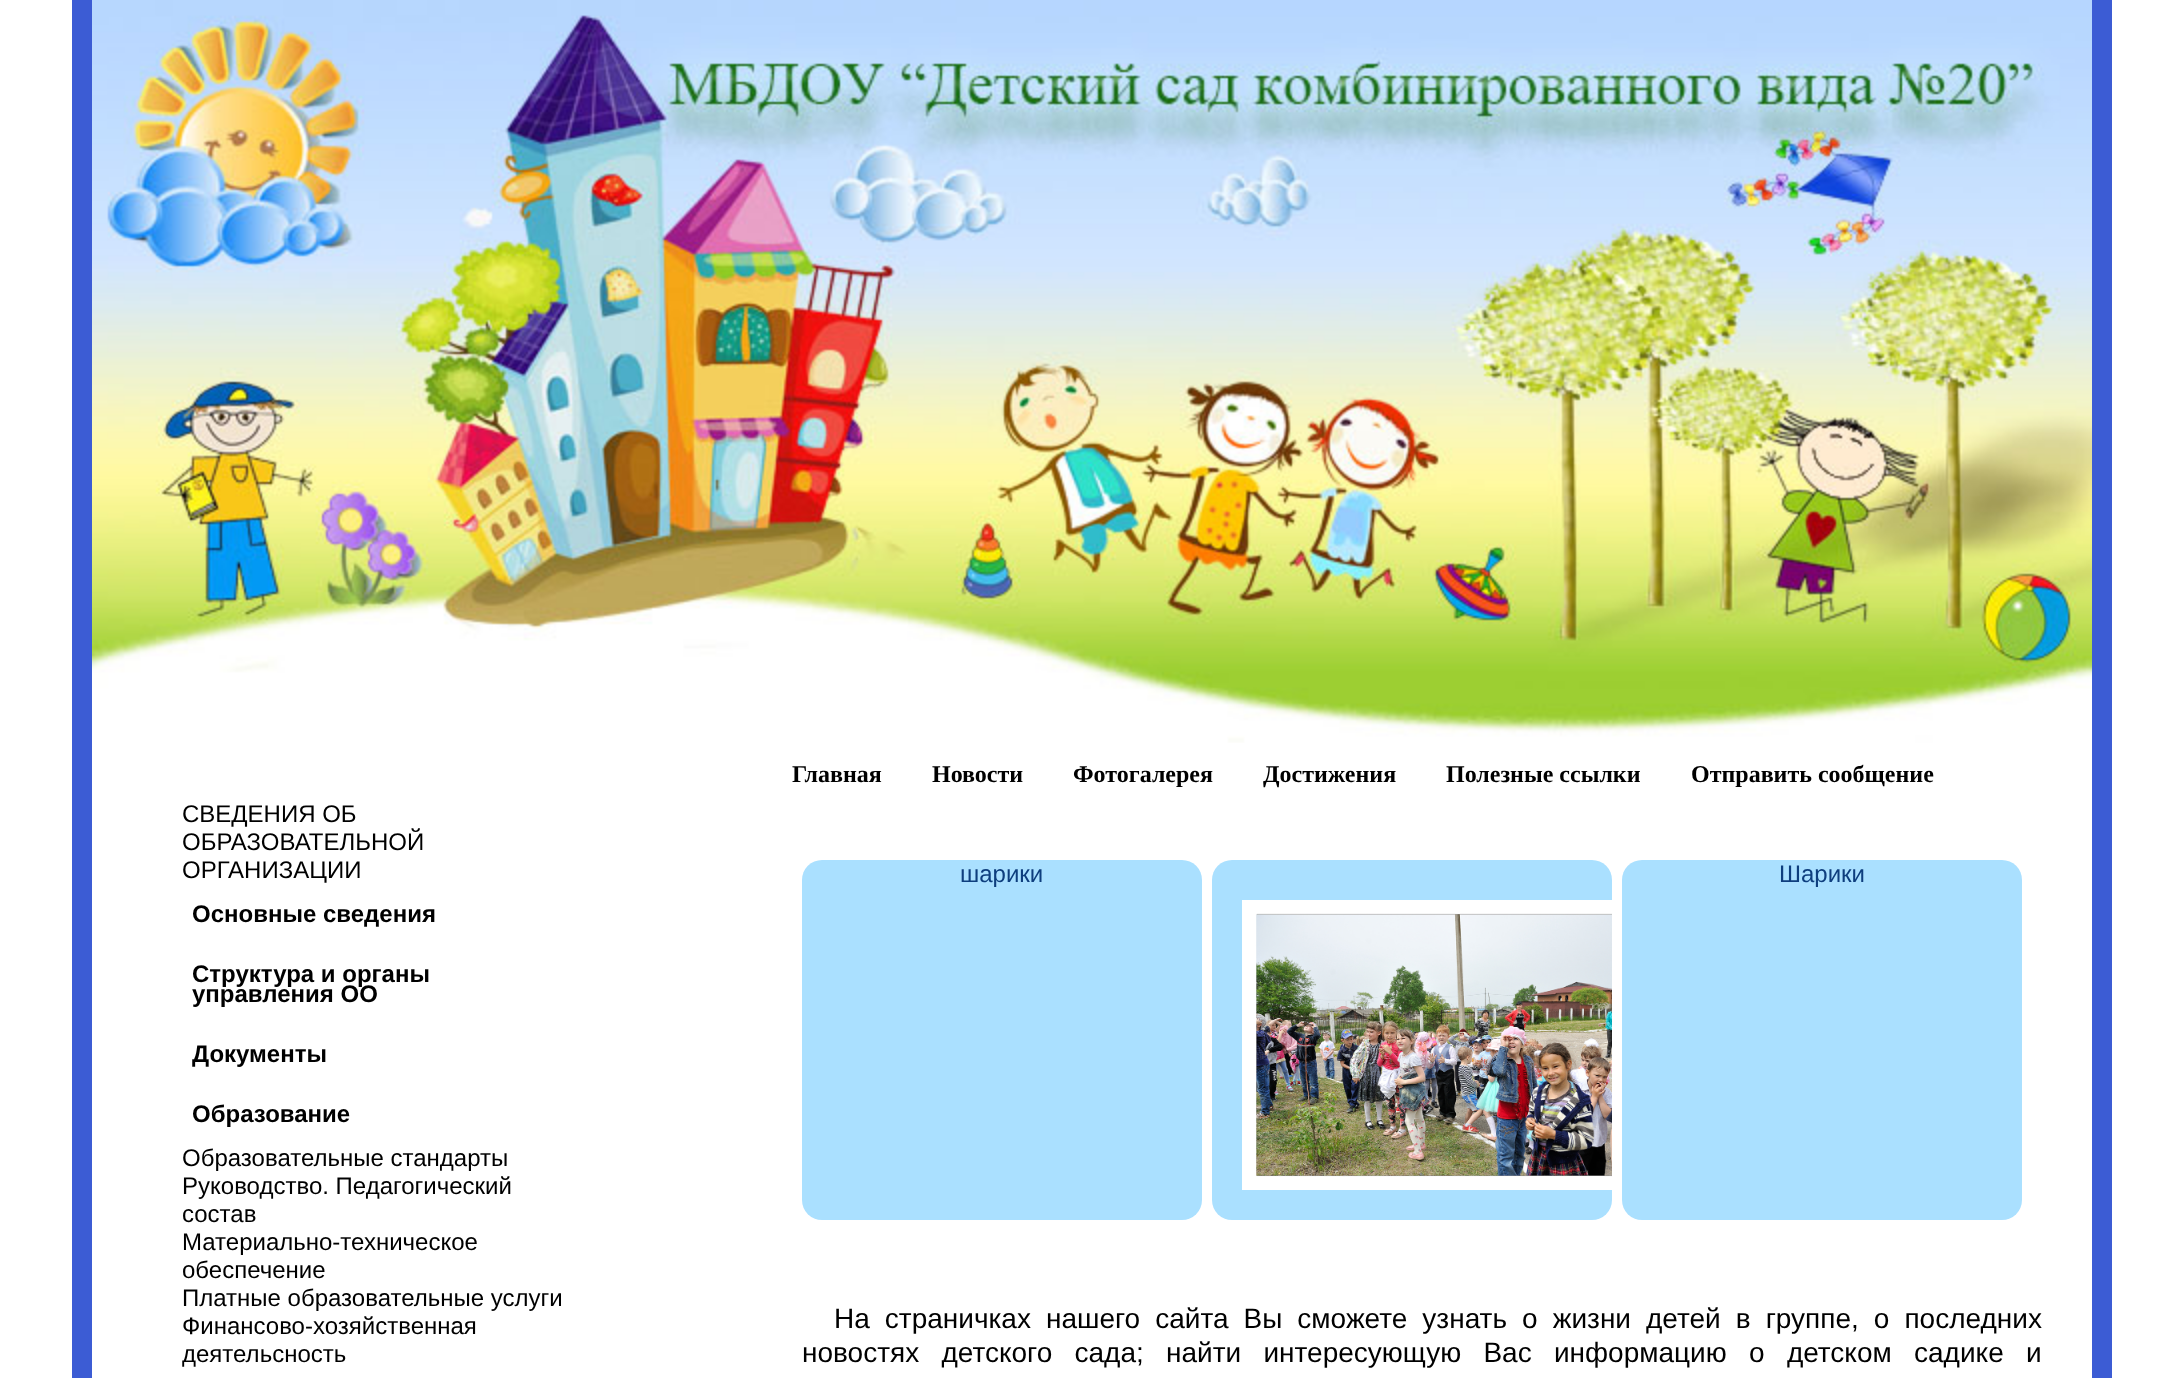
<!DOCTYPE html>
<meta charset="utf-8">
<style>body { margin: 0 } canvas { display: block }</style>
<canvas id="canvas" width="2184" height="1378"></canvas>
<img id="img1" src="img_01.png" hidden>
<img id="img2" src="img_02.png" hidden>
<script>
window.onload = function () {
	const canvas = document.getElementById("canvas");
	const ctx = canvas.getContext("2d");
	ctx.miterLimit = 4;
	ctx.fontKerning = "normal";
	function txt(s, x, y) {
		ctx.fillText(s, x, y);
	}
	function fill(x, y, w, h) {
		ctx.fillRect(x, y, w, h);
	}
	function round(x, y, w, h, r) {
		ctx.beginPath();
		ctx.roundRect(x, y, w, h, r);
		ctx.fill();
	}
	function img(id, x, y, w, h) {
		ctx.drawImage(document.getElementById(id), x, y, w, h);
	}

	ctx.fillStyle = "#FFFFFF";
	fill(0, 0, 2184, 1378);
	img("img1", 92, 0, 2000, 743);
	ctx.fillStyle = "#3C5CD4";
	fill(2092, 0, 20, 1378);
	fill(72, 0, 20, 1378);
	ctx.fillStyle = "#AAE0FF";
	round(802, 860, 400, 360, 20);
	round(1212, 860, 400, 360, 20);
	ctx.fillStyle = "#FFFFFF";
	ctx.beginPath();
	ctx.moveTo(1242, 900);
	ctx.lineTo(1242, 1190);
	ctx.lineTo(1612, 1190);
	ctx.lineTo(1612, 1180);
	ctx.lineTo(1252, 1180);
	ctx.lineTo(1252, 910);
	ctx.lineTo(1612, 910);
	ctx.lineTo(1612, 900);
	ctx.closePath();
	ctx.fill();
	img("img2", 1252, 910, 360, 270);
	ctx.fillStyle = "#AAE0FF";
	round(1622, 860, 400, 360, 20);
	ctx.font = "bold 24px Liberation Serif";
	ctx.fillStyle = "#000000";
	txt("Главная", 792, 782);
	txt("Новости", 932, 782);
	txt("Фотогалерея", 1073, 782);
	txt("Достижения", 1263, 782);
	txt("Полезные ссылки", 1446, 782);
	txt("Отправить сообщение", 1691, 782);
	ctx.font = "24px Liberation Sans";
	txt("СВЕДЕНИЯ ОБ", 182, 822);
	txt("ОБРАЗОВАТЕЛЬНОЙ", 182, 850);
	txt("ОРГАНИЗАЦИИ", 182, 878);
	ctx.font = "bold 24px Liberation Sans";
	txt("Основные сведения", 192, 922);
	txt("Структура и органы", 192, 982);
	txt("управления ОО", 192, 1002);
	txt("Документы", 192, 1062);
	txt("Образование", 192, 1122);
	ctx.font = "24px Liberation Sans";
	txt("Образовательные стандарты", 182, 1166);
	txt("Руководство. Педагогический", 182, 1194);
	txt("состав", 182, 1222);
	txt("Материально-техническое", 182, 1250);
	txt("обеспечение", 182, 1278);
	txt("Платные образовательные услуги", 182, 1306);
	txt("Финансово-хозяйственная", 182, 1334);
	txt("деятельсность", 182, 1362);
	ctx.fillStyle = "#0E3E7E";
	txt("шарики", 960, 882);
	txt("Шарики", 1779, 882);
	ctx.wordSpacing = "7.25px";
	ctx.font = "28px Liberation Sans";
	ctx.fillStyle = "#000000";
	txt("На страничках нашего сайта Вы сможете узнать о жизни детей в группе, о последних", 834, 1328);
	ctx.wordSpacing = "14.5px";
	txt("новостях детского сада; найти интересующую Вас информацию о детском садике и", 802, 1362);
};
</script>
